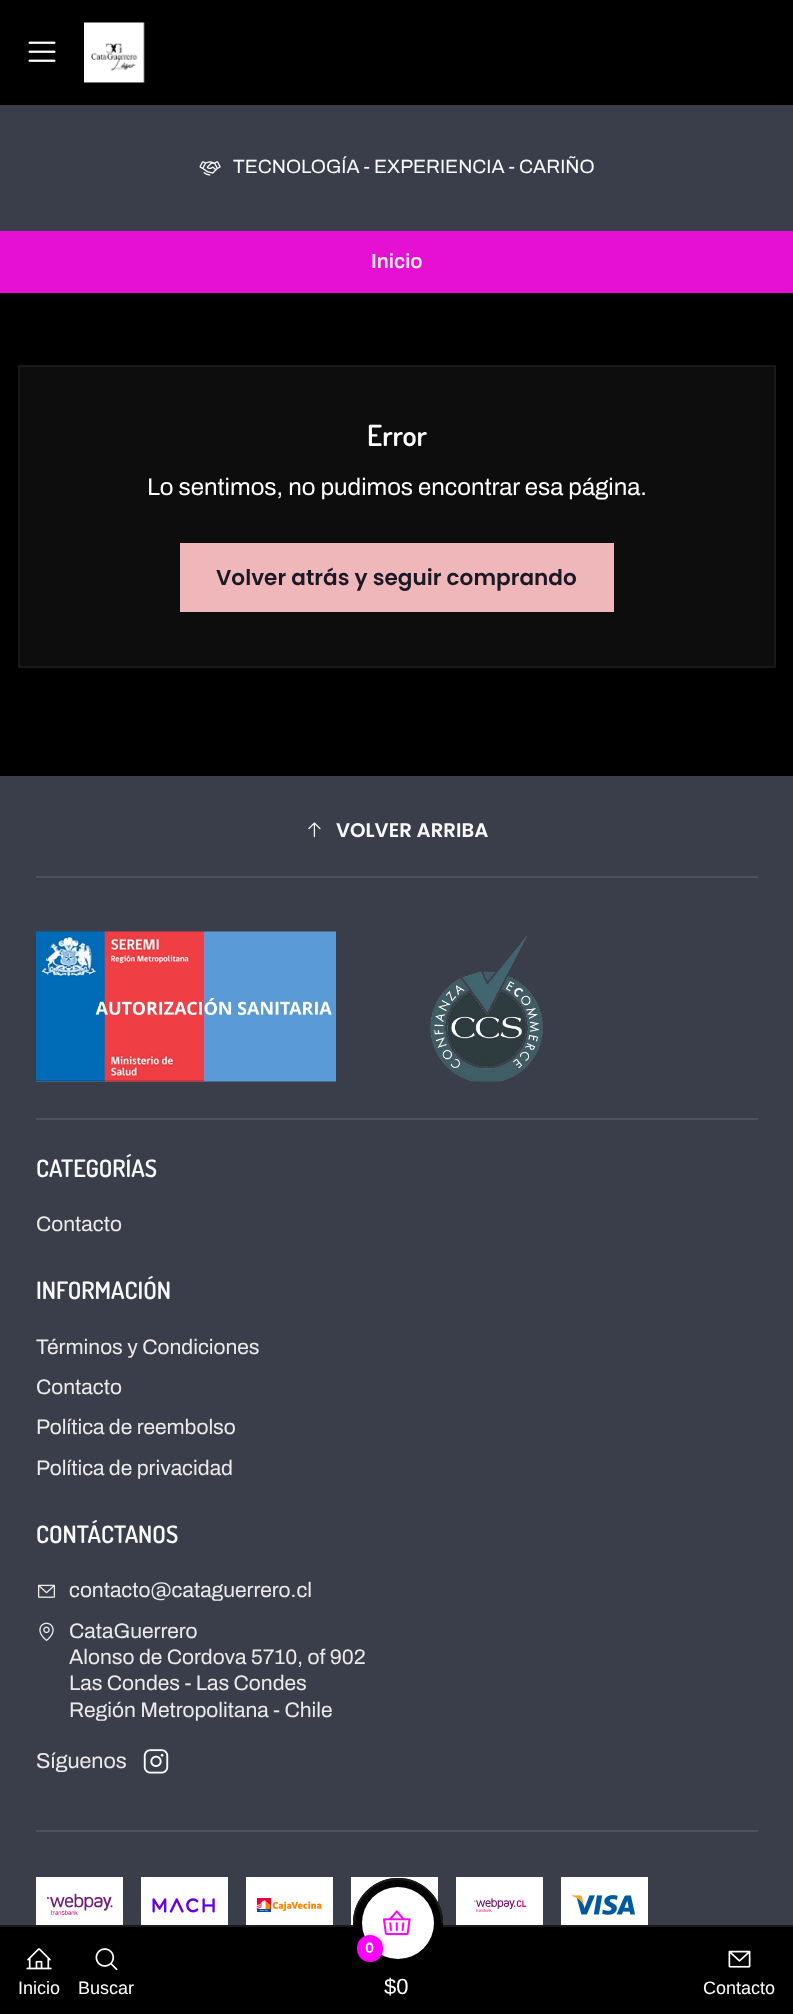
<!DOCTYPE html>
<meta charset="utf-8">
<style>body { margin: 0 } canvas { display: block }</style>
<canvas id="canvas" width="793" height="2014"></canvas>
<img id="img1" src="img_01.png" hidden>
<img id="img2" src="img_02.png" hidden>
<img id="img3" src="img_03.png" hidden>
<img id="img4" src="img_04.png" hidden>
<img id="img5" src="img_05.png" hidden>
<img id="img6" src="img_17.png" hidden>
<img id="img7" src="img_06.png" hidden>
<img id="img8" src="img_07.png" hidden>
<img id="img9" src="img_08.png" hidden>
<img id="img10" src="img_09.png" hidden>
<img id="img11" src="img_10.png" hidden>
<img id="img12" src="img_11.png" hidden>
<img id="img13" src="img_12.png" hidden>
<img id="img14" src="img_13.png" hidden>
<img id="img15" src="img_14.png" hidden>
<img id="img16" src="img_15.png" hidden>
<img id="img17" src="img_16.png" hidden>
<img id="img18" src="img_18.png" hidden>
<img id="img19" src="img_19.png" hidden>
<script>
window.onload = function () {
	const canvas = document.getElementById("canvas");
	const ctx = canvas.getContext("2d");
	ctx.miterLimit = 4;
	ctx.fontKerning = "normal";
	function txt(s, x, y) {
		ctx.fillText(s, x, y);
	}
	function fill(x, y, w, h) {
		ctx.fillRect(x, y, w, h);
	}
	function round(x, y, w, h, r) {
		ctx.beginPath();
		ctx.roundRect(x, y, w, h, r);
		ctx.fill();
	}
	function img(id, x, y, w, h) {
		ctx.drawImage(document.getElementById(id), x, y, w, h);
	}

	ctx.fillStyle = "#000000";
	fill(0, 0, 793, 2014);
	img("img1", 28, 41, 28, 21);
	img("img2", 84, 22, 61, 61);
	ctx.fillStyle = "#3A3E4B";
	fill(0, 105, 793, 126);
	img("img3", 199, 161, 22, 15);
	ctx.fillStyle = "#1A1A1A";
	fill(0, 1925, 793, 2);
	img("img4", 26, 1948, 26, 22);
	img("img5", 95, 1948, 23, 23);
	ctx.fillStyle = "#3A3E4B";
	fill(0, 776, 793, 1149);
	ctx.fillStyle = "#FFFFFF";
	fill(351, 1877, 87, 48);
	img("img6", 361, 1896, 1, 2);
	ctx.beginPath();
	ctx.arc(398, 1923, 40.5, 0, Math.PI * 2);
	ctx.strokeStyle = "#000000";
	ctx.lineWidth = 9;
	ctx.stroke();
	ctx.fillStyle = "#000000";
	ctx.beginPath();
	ctx.arc(398, 1923, 45, 0, Math.PI * 2);
	ctx.fill();
	ctx.beginPath();
	ctx.arc(398, 1923, 44, 0, Math.PI * 2);
	ctx.strokeStyle = "rgba(255, 255, 255, 0.1)";
	ctx.lineWidth = 2;
	ctx.stroke();
	fill(353, 1923, 90, 45);
	ctx.fillStyle = "#FFFFFF";
	ctx.beginPath();
	ctx.arc(398, 1923, 36, 0, Math.PI * 2);
	ctx.fill();
	img("img7", 383, 1910, 28, 26);
	ctx.fillStyle = "rgba(0, 0, 0, 0.2)";
	ctx.filter = "blur(4px)";
	ctx.beginPath();
	ctx.roundRect(357, 1935, 26, 27, 13);
	ctx.fill();
	ctx.filter = "none";
	ctx.fillStyle = "#FF00FF";
	round(357, 1935, 26, 27, 13);
	img("img8", 728, 1950, 23, 18);
	ctx.fillStyle = "#E60FD4";
	fill(0, 231, 793, 62);
	ctx.fillStyle = "#0D0D0D";
	ctx.beginPath();
	ctx.rect(19, 366, 756, 301);
	ctx.fill();
	ctx.strokeStyle = "#191919";
	ctx.stroke();
	ctx.fillStyle = "#EFB7BA";
	fill(180, 543, 434, 69);
	img("img9", 308, 822, 13, 16);
	ctx.fillStyle = "#4D515C";
	fill(36, 876, 722, 2);
	img("img10", 36, 931, 300, 151);
	img("img11", 430, 935, 113, 147);
	fill(36, 1118, 722, 2);
	img("img12", 37, 1584, 19, 14);
	img("img13", 39, 1622, 15, 19);
	img("img14", 143, 1749, 26, 25);
	fill(36, 1830, 722, 2);
	ctx.fillStyle = "#FFFFFF";
	fill(36, 1877, 87, 48);
	img("img15", 46, 1893, 67, 23);
	fill(141, 1877, 87, 48);
	img("img16", 152, 1898, 63, 15);
	fill(246, 1877, 87, 48);
	img("img17", 256, 1898, 66, 14);
	fill(456, 1877, 87, 48);
	img("img18", 474, 1898, 53, 14);
	fill(561, 1877, 87, 48);
	img("img19", 571, 1895, 64, 20);
	ctx.font = "19.25px Archivo";
	ctx.fillStyle = "#FAF9F9";
	txt("TECNOLOGÍA - EXPERIENCIA - CARIÑO", 233, 173);
	ctx.font = "18px Liberation Sans";
	ctx.fillStyle = "#FFFFFF";
	txt("Inicio", 18, 1994);
	txt("Buscar", 78, 1994);
	ctx.font = "600 14px Poppins";
	txt("0", 365, 1953);
	ctx.font = "22px Liberation Sans";
	txt("$0", 384, 1994);
	ctx.font = "18px Liberation Sans";
	txt("Contacto", 703, 1994);
	ctx.font = "600 20.5px Archivo";
	ctx.fillStyle = "#ECE9E9";
	txt("Inicio", 371, 268);
	ctx.font = "600 29px Dosis";
	ctx.fillStyle = "#FFFFFF";
	txt("Error", 367, 446);
	ctx.font = "24px Archivo";
	txt("Lo sentimos, no pudimos encontrar esa página.", 147, 495);
	ctx.font = "600 21.6px Poppins";
	ctx.fillStyle = "#1B1825";
	txt("Volver atrás y seguir comprando", 216, 585);
	ctx.font = "600 19.75px Poppins";
	ctx.fillStyle = "#FAF9F9";
	txt("VOLVER ARRIBA", 336, 837);
	ctx.font = "600 24px Dosis";
	txt("CATEGORÍAS", 36, 1177);
	ctx.font = "21px Archivo";
	ctx.fillStyle = "#ECE9E9";
	txt("Contacto", 36, 1231);
	ctx.font = "600 24px Dosis";
	ctx.fillStyle = "#FAF9F9";
	txt("INFORMACIÓN", 36, 1299);
	ctx.font = "21px Archivo";
	ctx.fillStyle = "#ECE9E9";
	txt("Términos y Condiciones", 36, 1354);
	txt("Contacto", 36, 1394);
	txt("Política de reembolso", 36, 1434);
	txt("Política de privacidad", 36, 1475);
	ctx.font = "600 24px Dosis";
	ctx.fillStyle = "#FAF9F9";
	txt("CONTÁCTANOS", 36, 1543);
	ctx.font = "21px Archivo";
	ctx.fillStyle = "#ECE9E9";
	txt("contacto@cataguerrero.cl", 69, 1597);
	txt("CataGuerrero", 69, 1638);
	txt("Alonso de Cordova 5710, of 902", 69, 1664);
	txt("Las Condes - Las Condes", 69, 1690);
	txt("Región Metropolitana - Chile", 69, 1717);
	ctx.font = "21.6px Archivo";
	txt("Síguenos", 36, 1768);
};
</script>
